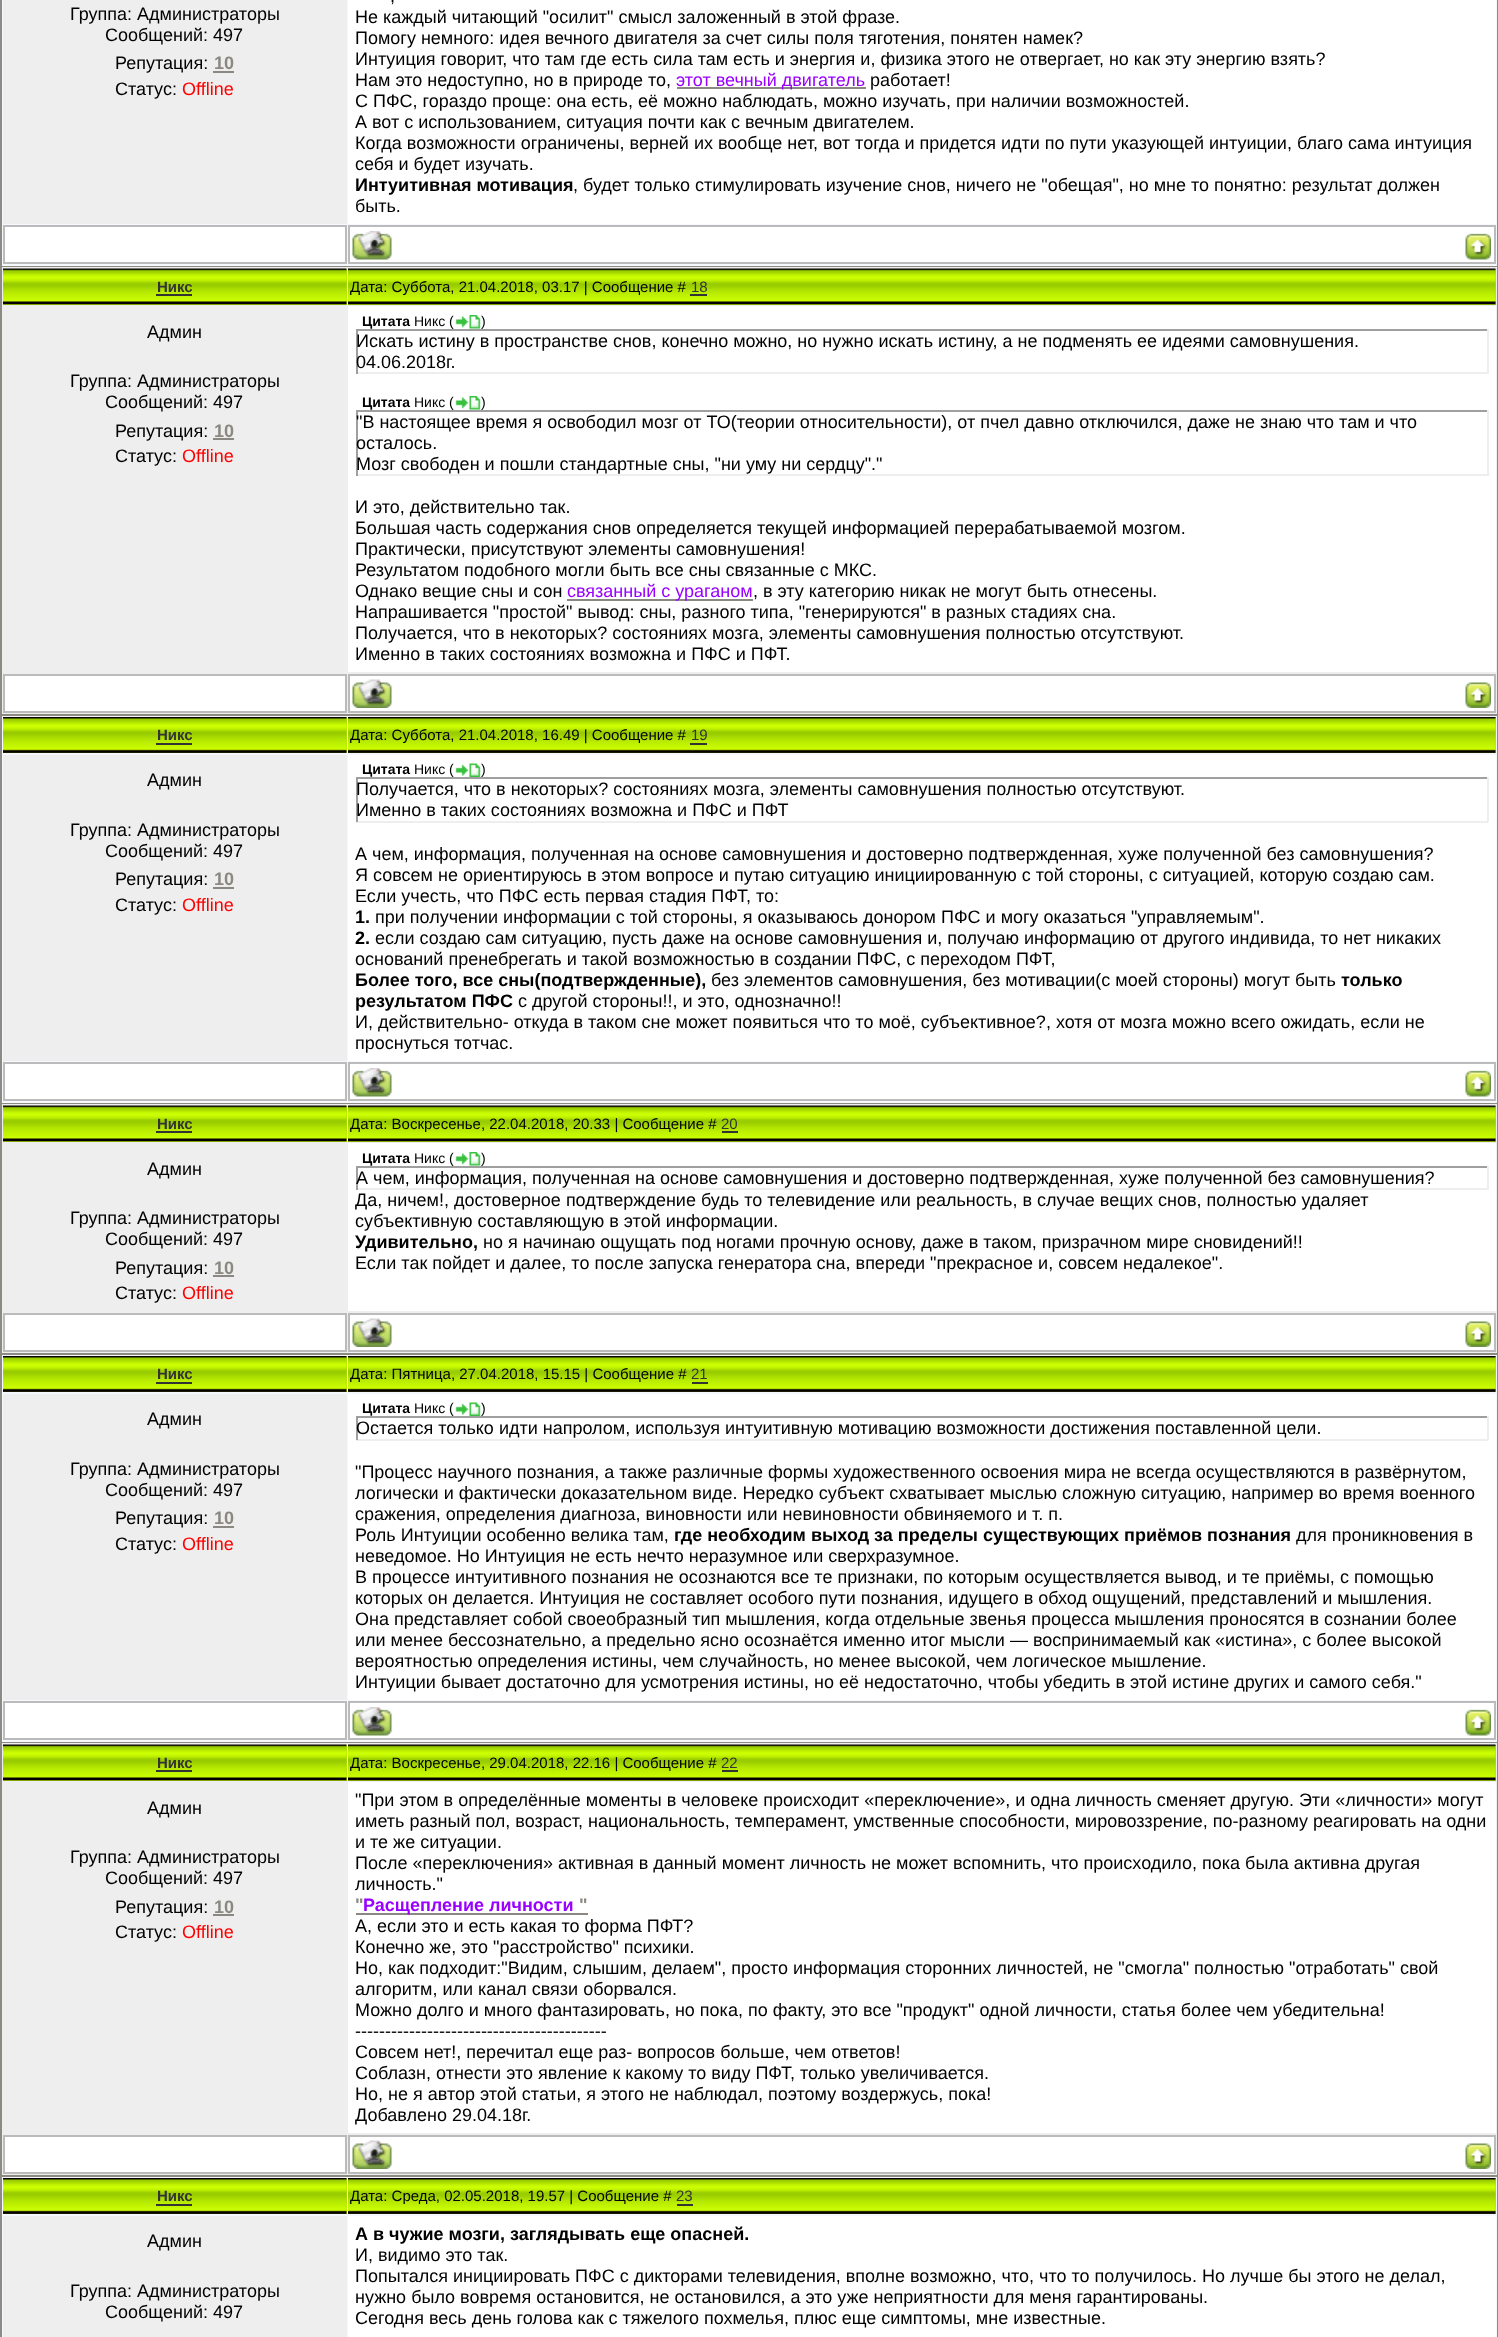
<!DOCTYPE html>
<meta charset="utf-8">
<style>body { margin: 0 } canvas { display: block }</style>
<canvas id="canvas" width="1498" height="2337"></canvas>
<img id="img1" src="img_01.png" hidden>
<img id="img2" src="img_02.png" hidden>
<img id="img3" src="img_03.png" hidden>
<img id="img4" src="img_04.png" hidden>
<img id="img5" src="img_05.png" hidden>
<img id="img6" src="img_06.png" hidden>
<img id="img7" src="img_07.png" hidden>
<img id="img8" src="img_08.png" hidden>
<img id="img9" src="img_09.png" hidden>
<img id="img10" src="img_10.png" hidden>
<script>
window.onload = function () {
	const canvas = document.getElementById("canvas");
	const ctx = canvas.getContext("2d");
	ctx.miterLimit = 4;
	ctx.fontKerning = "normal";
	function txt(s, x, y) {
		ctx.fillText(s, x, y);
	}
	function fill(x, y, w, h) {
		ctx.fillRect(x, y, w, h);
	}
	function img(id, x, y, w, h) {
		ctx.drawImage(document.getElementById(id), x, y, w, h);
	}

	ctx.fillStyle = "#8C8A82";
	fill(0, 0, 1498, 2337);
	ctx.fillStyle = "#F5F9FD";
	fill(2, 0, 1495, 266);
	ctx.fillStyle = "#EEEEEE";
	fill(3, 0, 344, 224);
	ctx.fillStyle = "#8B8881";
	fill(213, 71, 21, 2);
	ctx.fillStyle = "#FFFFFF";
	fill(348, 0, 1148, 224);
	ctx.fillStyle = "#8B8881";
	fill(677, 87, 189, 2);
	ctx.fillStyle = "#FFFFFF";
	ctx.beginPath();
	ctx.rect(4, 226, 342, 37);
	ctx.fill();
	ctx.strokeStyle = "#BBBBBB";
	ctx.lineWidth = 2;
	ctx.stroke();
	ctx.beginPath();
	ctx.rect(349, 226, 1146, 37);
	ctx.fill();
	ctx.stroke();
	img("img1", 352, 231, 40, 29);
	img("img2", 1465, 233, 26, 27);
	ctx.fillStyle = "#EEEEEE";
	fill(2, 267, 1495, 447);
	ctx.fillStyle = "#B0E300";
	fill(3, 269, 344, 36);
	img("img3", 3, 268, 344, 37);
	ctx.fillStyle = "#333333";
	fill(156, 294, 36, 2);
	ctx.fillStyle = "#B0E300";
	fill(348, 269, 1148, 36);
	img("img4", 348, 268, 1148, 37);
	ctx.fillStyle = "#333333";
	fill(690, 294, 17, 2);
	ctx.fillStyle = "#8B8881";
	fill(213, 438, 21, 2);
	ctx.fillStyle = "#FFFFFF";
	fill(348, 306, 1148, 366);
	img("img5", 455, 315, 26, 14);
	ctx.fillStyle = "#9F9F9F";
	fill(356, 329, 1132, 2);
	ctx.fillStyle = "#EEEEEE";
	fill(1487, 329, 2, 45);
	fill(356, 372, 1132, 2);
	ctx.fillStyle = "#9F9F9F";
	fill(356, 329, 2, 45);
	img("img5", 455, 396, 26, 14);
	fill(356, 410, 1132, 2);
	ctx.fillStyle = "#EEEEEE";
	fill(1487, 410, 2, 66);
	fill(356, 474, 1132, 2);
	ctx.fillStyle = "#9F9F9F";
	fill(356, 410, 2, 66);
	ctx.fillStyle = "#8B8881";
	fill(567, 599, 186, 2);
	ctx.fillStyle = "#FFFFFF";
	ctx.beginPath();
	ctx.rect(4, 675, 342, 37);
	ctx.fill();
	ctx.stroke();
	ctx.beginPath();
	ctx.rect(349, 675, 1146, 37);
	ctx.fill();
	ctx.stroke();
	img("img6", 352, 679, 40, 29);
	img("img7", 1465, 682, 26, 26);
	ctx.fillStyle = "#F5F9FD";
	fill(2, 716, 1495, 387);
	ctx.fillStyle = "#B0E300";
	fill(346, 717, 1, 36);
	img("img8", 3, 717, 344, 36);
	ctx.fillStyle = "#333333";
	fill(156, 743, 36, 2);
	ctx.fillStyle = "#B0E300";
	fill(1495, 717, 1, 36);
	img("img9", 348, 717, 1148, 36);
	ctx.fillStyle = "#333333";
	fill(690, 743, 17, 2);
	ctx.fillStyle = "#EEEEEE";
	fill(3, 755, 344, 306);
	ctx.fillStyle = "#8B8881";
	fill(213, 887, 21, 2);
	ctx.fillStyle = "#FFFFFF";
	fill(348, 755, 1148, 306);
	img("img10", 455, 763, 26, 14);
	ctx.fillStyle = "#9F9F9F";
	fill(356, 777, 1132, 2);
	ctx.fillStyle = "#EEEEEE";
	fill(1487, 777, 2, 45);
	fill(356, 821, 1132, 2);
	ctx.fillStyle = "#9F9F9F";
	fill(356, 777, 2, 45);
	ctx.fillStyle = "#FFFFFF";
	ctx.beginPath();
	ctx.rect(4, 1063, 342, 37);
	ctx.fill();
	ctx.stroke();
	ctx.beginPath();
	ctx.rect(349, 1063, 1146, 37);
	ctx.fill();
	ctx.stroke();
	img("img1", 352, 1068, 40, 29);
	img("img2", 1465, 1070, 26, 27);
	ctx.fillStyle = "#EEEEEE";
	fill(2, 1104, 1495, 249);
	ctx.fillStyle = "#B0E300";
	fill(3, 1106, 344, 36);
	img("img3", 3, 1105, 344, 37);
	ctx.fillStyle = "#333333";
	fill(156, 1131, 36, 2);
	ctx.fillStyle = "#B0E300";
	fill(348, 1106, 1148, 36);
	img("img4", 348, 1105, 1148, 37);
	ctx.fillStyle = "#333333";
	fill(722, 1131, 16, 2);
	ctx.fillStyle = "#8B8881";
	fill(213, 1275, 21, 2);
	ctx.fillStyle = "#FFFFFF";
	fill(348, 1143, 1148, 168);
	img("img5", 455, 1152, 26, 14);
	ctx.fillStyle = "#9F9F9F";
	fill(356, 1166, 1132, 2);
	ctx.fillStyle = "#EEEEEE";
	fill(1487, 1166, 2, 24);
	fill(356, 1188, 1132, 2);
	ctx.fillStyle = "#9F9F9F";
	fill(356, 1166, 2, 24);
	ctx.fillStyle = "#FFFFFF";
	ctx.beginPath();
	ctx.rect(4, 1314, 342, 37);
	ctx.fill();
	ctx.stroke();
	ctx.beginPath();
	ctx.rect(349, 1314, 1146, 37);
	ctx.fill();
	ctx.stroke();
	img("img6", 352, 1318, 40, 29);
	img("img7", 1465, 1321, 26, 26);
	ctx.fillStyle = "#F5F9FD";
	fill(2, 1355, 1495, 387);
	ctx.fillStyle = "#B0E300";
	fill(346, 1356, 1, 36);
	img("img8", 3, 1356, 344, 36);
	ctx.fillStyle = "#333333";
	fill(156, 1382, 36, 2);
	ctx.fillStyle = "#B0E300";
	fill(1495, 1356, 1, 36);
	img("img9", 348, 1356, 1148, 36);
	ctx.fillStyle = "#333333";
	fill(692, 1382, 16, 2);
	ctx.fillStyle = "#EEEEEE";
	fill(3, 1394, 344, 306);
	ctx.fillStyle = "#8B8881";
	fill(213, 1526, 21, 2);
	ctx.fillStyle = "#FFFFFF";
	fill(348, 1394, 1148, 306);
	img("img10", 455, 1402, 26, 14);
	ctx.fillStyle = "#9F9F9F";
	fill(356, 1416, 1132, 2);
	ctx.fillStyle = "#EEEEEE";
	fill(1487, 1416, 2, 24);
	fill(356, 1439, 1132, 2);
	ctx.fillStyle = "#9F9F9F";
	fill(356, 1416, 2, 24);
	ctx.fillStyle = "#FFFFFF";
	ctx.beginPath();
	ctx.rect(4, 1702, 342, 37);
	ctx.fill();
	ctx.stroke();
	ctx.beginPath();
	ctx.rect(349, 1702, 1146, 37);
	ctx.fill();
	ctx.stroke();
	img("img1", 352, 1707, 40, 29);
	img("img2", 1465, 1709, 26, 27);
	ctx.fillStyle = "#EEEEEE";
	fill(2, 1743, 1495, 432);
	ctx.fillStyle = "#B0E300";
	fill(3, 1745, 344, 36);
	img("img3", 3, 1744, 344, 37);
	ctx.fillStyle = "#333333";
	fill(156, 1770, 36, 2);
	ctx.fillStyle = "#B0E300";
	fill(348, 1745, 1148, 36);
	img("img4", 348, 1744, 1148, 37);
	ctx.fillStyle = "#333333";
	fill(722, 1770, 16, 2);
	ctx.fillStyle = "#8B8881";
	fill(213, 1914, 21, 2);
	ctx.fillStyle = "#FFFFFF";
	fill(348, 1782, 1148, 351);
	ctx.fillStyle = "#8B8881";
	fill(356, 1913, 232, 2);
	ctx.fillStyle = "#FFFFFF";
	ctx.beginPath();
	ctx.rect(4, 2136, 342, 37);
	ctx.fill();
	ctx.stroke();
	ctx.beginPath();
	ctx.rect(349, 2136, 1146, 37);
	ctx.fill();
	ctx.stroke();
	img("img6", 352, 2140, 40, 29);
	img("img7", 1465, 2143, 26, 26);
	ctx.fillStyle = "#F5F9FD";
	fill(2, 2177, 1495, 160);
	ctx.fillStyle = "#B0E300";
	fill(346, 2178, 1, 36);
	img("img8", 3, 2178, 344, 36);
	ctx.fillStyle = "#333333";
	fill(156, 2204, 36, 2);
	ctx.fillStyle = "#B0E300";
	fill(1495, 2178, 1, 36);
	img("img9", 348, 2178, 1148, 36);
	ctx.fillStyle = "#333333";
	fill(677, 2204, 16, 2);
	ctx.fillStyle = "#EEEEEE";
	fill(3, 2216, 344, 121);
	ctx.fillStyle = "#FFFFFF";
	fill(348, 2216, 1148, 121);
	ctx.font = "18px Liberation Sans";
	ctx.fillStyle = "#000000";
	txt("Группа: Администраторы", 70, 20);
	txt("Сообщений: 497", 105, 41);
	txt("Репутация:", 115, 69);
	ctx.font = "bold 18px Liberation Sans";
	ctx.fillStyle = "#8B8881";
	txt("10", 214, 69);
	ctx.font = "18px Liberation Sans";
	ctx.fillStyle = "#000000";
	txt("Статус:", 115, 95);
	ctx.fillStyle = "#FF0000";
	txt("Offline", 182, 95);
	ctx.fillStyle = "#000000";
	txt(",", 390, 2);
	txt("Не каждый читающий \"осилит\" смысл заложенный в этой фразе.", 355, 23);
	txt("Помогу немного: идея вечного двигателя за счет силы поля тяготения, понятен намек?", 355, 44);
	txt("Интуиция говорит, что там где есть сила там есть и энергия и, физика этого не отвергает, но как эту энергию взять?", 355, 65);
	txt("Нам это недоступно, но в природе то,", 355, 86);
	ctx.fillStyle = "#9900FF";
	txt("этот вечный двигатель", 676, 86);
	ctx.fillStyle = "#000000";
	txt("работает!", 870, 86);
	txt("С ПФС, гораздо проще: она есть, её можно наблюдать, можно изучать, при наличии возможностей.", 355, 107);
	txt("А вот с использованием, ситуация почти как с вечным двигателем.", 355, 128);
	txt("Когда возможности ограничены, верней их вообще нет, вот тогда и придется идти по пути указующей интуиции, благо сама интуиция", 355, 149);
	txt("себя и будет изучать.", 355, 170);
	ctx.font = "bold 18px Liberation Sans";
	txt("Интуитивная мотивация", 355, 191);
	ctx.font = "18px Liberation Sans";
	txt(", будет только стимулировать изучение снов, ничего не \"обещая\", но мне то понятно: результат должен", 573, 191);
	txt("быть.", 355, 212);
	ctx.font = "bold 15px Liberation Sans";
	ctx.fillStyle = "#333333";
	txt("Никс", 157, 292);
	ctx.font = "15px Liberation Sans";
	ctx.fillStyle = "#000000";
	txt("Дата: Суббота, 21.04.2018, 03.17 | Сообщение #", 350, 292);
	ctx.fillStyle = "#333333";
	txt("18", 691, 292);
	ctx.font = "18px Liberation Sans";
	ctx.fillStyle = "#000000";
	txt("Админ", 147, 338);
	txt("Группа: Администраторы", 70, 387);
	txt("Сообщений: 497", 105, 408);
	txt("Репутация:", 115, 437);
	ctx.font = "bold 18px Liberation Sans";
	ctx.fillStyle = "#8B8881";
	txt("10", 214, 437);
	ctx.font = "18px Liberation Sans";
	ctx.fillStyle = "#000000";
	txt("Статус:", 115, 462);
	ctx.fillStyle = "#FF0000";
	txt("Offline", 182, 462);
	ctx.font = "bold 14px Liberation Sans";
	ctx.fillStyle = "#000000";
	txt("Цитата", 362, 326);
	ctx.font = "14px Liberation Sans";
	txt("Никс (", 414, 326);
	txt(")", 481, 326);
	ctx.font = "18px Liberation Sans";
	txt("Искать истину в пространстве снов, конечно можно, но нужно искать истину, а не подменять ее идеями самовнушения.", 356, 347);
	txt("04.06.2018г.", 356, 368);
	ctx.font = "bold 14px Liberation Sans";
	txt("Цитата", 362, 407);
	ctx.font = "14px Liberation Sans";
	txt("Никс (", 414, 407);
	txt(")", 481, 407);
	ctx.font = "18px Liberation Sans";
	txt("\"В настоящее время я освободил мозг от ТО(теории относительности), от пчел давно отключился, даже не знаю что там и что", 356, 428);
	txt("осталось.", 356, 449);
	txt("Мозг свободен и пошли стандартные сны, \"ни уму ни сердцу\".\"", 356, 470);
	txt("И это, действительно так.", 355, 513);
	txt("Большая часть содержания снов определяется текущей информацией перерабатываемой мозгом.", 355, 534);
	txt("Практически, присутствуют элементы самовнушения!", 355, 555);
	txt("Результатом подобного могли быть все сны связанные с МКС.", 355, 576);
	txt("Однако вещие сны и сон", 355, 597);
	ctx.fillStyle = "#9900FF";
	txt("связанный с ураганом", 567, 597);
	ctx.fillStyle = "#000000";
	txt(", в эту категорию никак не могут быть отнесены.", 753, 597);
	txt("Напрашивается \"простой\" вывод: сны, разного типа, \"генерируются\" в разных стадиях сна.", 355, 618);
	txt("Получается, что в некоторых? состояниях мозга, элементы самовнушения полностью отсутствуют.", 355, 639);
	txt("Именно в таких состояниях возможна и ПФС и ПФТ.", 355, 660);
	ctx.font = "bold 15px Liberation Sans";
	ctx.fillStyle = "#333333";
	txt("Никс", 157, 740);
	ctx.font = "15px Liberation Sans";
	ctx.fillStyle = "#000000";
	txt("Дата: Суббота, 21.04.2018, 16.49 | Сообщение #", 350, 740);
	ctx.fillStyle = "#333333";
	txt("19", 691, 740);
	ctx.font = "18px Liberation Sans";
	ctx.fillStyle = "#000000";
	txt("Админ", 147, 786);
	txt("Группа: Администраторы", 70, 836);
	txt("Сообщений: 497", 105, 857);
	txt("Репутация:", 115, 885);
	ctx.font = "bold 18px Liberation Sans";
	ctx.fillStyle = "#8B8881";
	txt("10", 214, 885);
	ctx.font = "18px Liberation Sans";
	ctx.fillStyle = "#000000";
	txt("Статус:", 115, 911);
	ctx.fillStyle = "#FF0000";
	txt("Offline", 182, 911);
	ctx.font = "bold 14px Liberation Sans";
	ctx.fillStyle = "#000000";
	txt("Цитата", 362, 774);
	ctx.font = "14px Liberation Sans";
	txt("Никс (", 414, 774);
	txt(")", 481, 774);
	ctx.font = "18px Liberation Sans";
	txt("Получается, что в некоторых? состояниях мозга, элементы самовнушения полностью отсутствуют.", 356, 795);
	txt("Именно в таких состояниях возможна и ПФС и ПФТ", 356, 816);
	txt("А чем, информация, полученная на основе самовнушения и достоверно подтвержденная, хуже полученной без самовнушения?", 355, 860);
	txt("Я совсем не ориентируюсь в этом вопросе и путаю ситуацию инициированную с той стороны, с ситуацией, которую создаю сам.", 355, 881);
	txt("Если учесть, что ПФС есть первая стадия ПФТ, то:", 355, 902);
	ctx.font = "bold 18px Liberation Sans";
	txt("1.", 355, 923);
	ctx.font = "18px Liberation Sans";
	txt("при получении информации с той стороны, я оказываюсь донором ПФС и могу оказаться \"управляемым\".", 375, 923);
	ctx.font = "bold 18px Liberation Sans";
	txt("2.", 355, 944);
	ctx.font = "18px Liberation Sans";
	txt("если создаю сам ситуацию, пусть даже на основе самовнушения и, получаю информацию от другого индивида, то нет никаких", 375, 944);
	txt("оснований пренебрегать и такой возможностью в создании ПФС, с переходом ПФТ,", 355, 965);
	ctx.font = "bold 18px Liberation Sans";
	txt("Более того, все сны(подтвержденные),", 355, 986);
	ctx.font = "18px Liberation Sans";
	txt("без элементов самовнушения, без мотивации(с моей стороны) могут быть", 711, 986);
	ctx.font = "bold 18px Liberation Sans";
	txt("только", 1341, 986);
	txt("результатом ПФС", 355, 1007);
	ctx.font = "18px Liberation Sans";
	txt("с другой стороны!!, и это, однозначно!!", 518, 1007);
	txt("И, действительно- откуда в таком сне может появиться что то моё, субъективное?, хотя от мозга можно всего ожидать, если не", 355, 1028);
	txt("проснуться тотчас.", 355, 1049);
	ctx.font = "bold 15px Liberation Sans";
	ctx.fillStyle = "#333333";
	txt("Никс", 157, 1129);
	ctx.font = "15px Liberation Sans";
	ctx.fillStyle = "#000000";
	txt("Дата: Воскресенье, 22.04.2018, 20.33 | Сообщение #", 350, 1129);
	ctx.fillStyle = "#333333";
	txt("20", 721, 1129);
	ctx.font = "18px Liberation Sans";
	ctx.fillStyle = "#000000";
	txt("Админ", 147, 1175);
	txt("Группа: Администраторы", 70, 1224);
	txt("Сообщений: 497", 105, 1245);
	txt("Репутация:", 115, 1274);
	ctx.font = "bold 18px Liberation Sans";
	ctx.fillStyle = "#8B8881";
	txt("10", 214, 1274);
	ctx.font = "18px Liberation Sans";
	ctx.fillStyle = "#000000";
	txt("Статус:", 115, 1299);
	ctx.fillStyle = "#FF0000";
	txt("Offline", 182, 1299);
	ctx.font = "bold 14px Liberation Sans";
	ctx.fillStyle = "#000000";
	txt("Цитата", 362, 1163);
	ctx.font = "14px Liberation Sans";
	txt("Никс (", 414, 1163);
	txt(")", 481, 1163);
	ctx.font = "18px Liberation Sans";
	txt("А чем, информация, полученная на основе самовнушения и достоверно подтвержденная, хуже полученной без самовнушения?", 356, 1184);
	txt("Да, ничем!, достоверное подтверждение будь то телевидение или реальность, в случае вещих снов, полностью удаляет", 355, 1206);
	txt("субъективную составляющую в этой информации.", 355, 1227);
	ctx.font = "bold 18px Liberation Sans";
	txt("Удивительно,", 355, 1248);
	ctx.font = "18px Liberation Sans";
	txt("но я начинаю ощущать под ногами прочную основу, даже в таком, призрачном мире сновидений!!", 483, 1248);
	txt("Если так пойдет и далее, то после запуска генератора сна, впереди \"прекрасное и, совсем недалекое\".", 355, 1269);
	ctx.font = "bold 15px Liberation Sans";
	ctx.fillStyle = "#333333";
	txt("Никс", 157, 1379);
	ctx.font = "15px Liberation Sans";
	ctx.fillStyle = "#000000";
	txt("Дата: Пятница, 27.04.2018, 15.15 | Сообщение #", 350, 1379);
	ctx.fillStyle = "#333333";
	txt("21", 691, 1379);
	ctx.font = "18px Liberation Sans";
	ctx.fillStyle = "#000000";
	txt("Админ", 147, 1425);
	txt("Группа: Администраторы", 70, 1475);
	txt("Сообщений: 497", 105, 1496);
	txt("Репутация:", 115, 1524);
	ctx.font = "bold 18px Liberation Sans";
	ctx.fillStyle = "#8B8881";
	txt("10", 214, 1524);
	ctx.font = "18px Liberation Sans";
	ctx.fillStyle = "#000000";
	txt("Статус:", 115, 1550);
	ctx.fillStyle = "#FF0000";
	txt("Offline", 182, 1550);
	ctx.font = "bold 14px Liberation Sans";
	ctx.fillStyle = "#000000";
	txt("Цитата", 362, 1413);
	ctx.font = "14px Liberation Sans";
	txt("Никс (", 414, 1413);
	txt(")", 481, 1413);
	ctx.font = "18px Liberation Sans";
	txt("Остается только идти напролом, используя интуитивную мотивацию возможности достижения поставленной цели.", 356, 1434);
	txt("\"Процесс научного познания, а также различные формы художественного освоения мира не всегда осуществляются в развёрнутом,", 355, 1478);
	txt("логически и фактически доказательном виде. Нередко субъект схватывает мыслью сложную ситуацию, например во время военного", 355, 1499);
	txt("сражения, определения диагноза, виновности или невиновности обвиняемого и т. п.", 355, 1520);
	txt("Роль Интуиции особенно велика там,", 355, 1541);
	ctx.font = "bold 18px Liberation Sans";
	txt("где необходим выход за пределы существующих приёмов познания", 674, 1541);
	ctx.font = "18px Liberation Sans";
	txt("для проникновения в", 1296, 1541);
	txt("неведомое. Но Интуиция не есть нечто неразумное или сверхразумное.", 355, 1562);
	txt("В процессе интуитивного познания не осознаются все те признаки, по которым осуществляется вывод, и те приёмы, с помощью", 355, 1583);
	txt("которых он делается. Интуиция не составляет особого пути познания, идущего в обход ощущений, представлений и мышления.", 355, 1604);
	txt("Она представляет собой своеобразный тип мышления, когда отдельные звенья процесса мышления проносятся в сознании более", 355, 1625);
	txt("или менее бессознательно, а предельно ясно осознаётся именно итог мысли — воспринимаемый как «истина», c более высокой", 355, 1646);
	txt("вероятностью определения истины, чем случайность, но менее высокой, чем логическое мышление.", 355, 1667);
	txt("Интуиции бывает достаточно для усмотрения истины, но её недостаточно, чтобы убедить в этой истине других и самого себя.\"", 355, 1688);
	ctx.font = "bold 15px Liberation Sans";
	ctx.fillStyle = "#333333";
	txt("Никс", 157, 1768);
	ctx.font = "15px Liberation Sans";
	ctx.fillStyle = "#000000";
	txt("Дата: Воскресенье, 29.04.2018, 22.16 | Сообщение #", 350, 1768);
	ctx.fillStyle = "#333333";
	txt("22", 721, 1768);
	ctx.font = "18px Liberation Sans";
	ctx.fillStyle = "#000000";
	txt("Админ", 147, 1814);
	txt("Группа: Администраторы", 70, 1863);
	txt("Сообщений: 497", 105, 1884);
	txt("Репутация:", 115, 1913);
	ctx.font = "bold 18px Liberation Sans";
	ctx.fillStyle = "#8B8881";
	txt("10", 214, 1913);
	ctx.font = "18px Liberation Sans";
	ctx.fillStyle = "#000000";
	txt("Статус:", 115, 1938);
	ctx.fillStyle = "#FF0000";
	txt("Offline", 182, 1938);
	ctx.fillStyle = "#000000";
	txt("\"При этом в определённые моменты в человеке происходит «переключение», и одна личность сменяет другую. Эти «личности» могут", 355, 1806);
	txt("иметь разный пол, возраст, национальность, темперамент, умственные способности, мировоззрение, по-разному реагировать на одни", 355, 1827);
	txt("и те же ситуации.", 355, 1848);
	txt("После «переключения» активная в данный момент личность не может вспомнить, что происходило, пока была активна другая", 355, 1869);
	txt("личность.\"", 355, 1890);
	ctx.font = "bold 18px Liberation Sans";
	ctx.fillStyle = "#8B8881";
	txt("\"", 355, 1911);
	ctx.fillStyle = "#9900FF";
	txt("Расщепление личности", 363, 1911);
	ctx.fillStyle = "#8B8881";
	txt("\"", 579, 1911);
	ctx.font = "18px Liberation Sans";
	ctx.fillStyle = "#000000";
	txt("А, если это и есть какая то форма ПФТ?", 355, 1932);
	txt("Конечно же, это \"расстройство\" психики.", 355, 1953);
	txt("Но, как подходит:\"Видим, слышим, делаем\", просто информация сторонних личностей, не \"смогла\" полностью \"отработать\" свой", 355, 1974);
	txt("алгоритм, или канал связи оборвался.", 355, 1995);
	txt("Можно долго и много фантазировать, но пока, по факту, это все \"продукт\" одной личности, статья более чем убедительна!", 355, 2016);
	txt("------------------------------------------", 355, 2037);
	txt("Совсем нет!, перечитал еще раз- вопросов больше, чем ответов!", 355, 2058);
	txt("Соблазн, отнести это явление к какому то виду ПФТ, только увеличивается.", 355, 2079);
	txt("Но, не я автор этой статьи, я этого не наблюдал, поэтому воздержусь, пока!", 355, 2100);
	txt("Добавлено 29.04.18г.", 355, 2121);
	ctx.font = "bold 15px Liberation Sans";
	ctx.fillStyle = "#333333";
	txt("Никс", 157, 2201);
	ctx.font = "15px Liberation Sans";
	ctx.fillStyle = "#000000";
	txt("Дата: Среда, 02.05.2018, 19.57 | Сообщение #", 350, 2201);
	ctx.fillStyle = "#333333";
	txt("23", 676, 2201);
	ctx.font = "18px Liberation Sans";
	ctx.fillStyle = "#000000";
	txt("Админ", 147, 2247);
	txt("Группа: Администраторы", 70, 2297);
	txt("Сообщений: 497", 105, 2318);
	ctx.font = "bold 18px Liberation Sans";
	txt("А в чужие мозги, заглядывать еще опасней.", 355, 2240);
	ctx.font = "18px Liberation Sans";
	txt("И, видимо это так.", 355, 2261);
	txt("Попытался инициировать ПФС с дикторами телевидения, вполне возможно, что, что то получилось. Но лучше бы этого не делал,", 355, 2282);
	txt("нужно было вовремя остановится, не остановился, а это уже неприятности для меня гарантированы.", 355, 2303);
	txt("Сегодня весь день голова как с тяжелого похмелья, плюс еще симптомы, мне известные.", 355, 2324);
};
</script>
